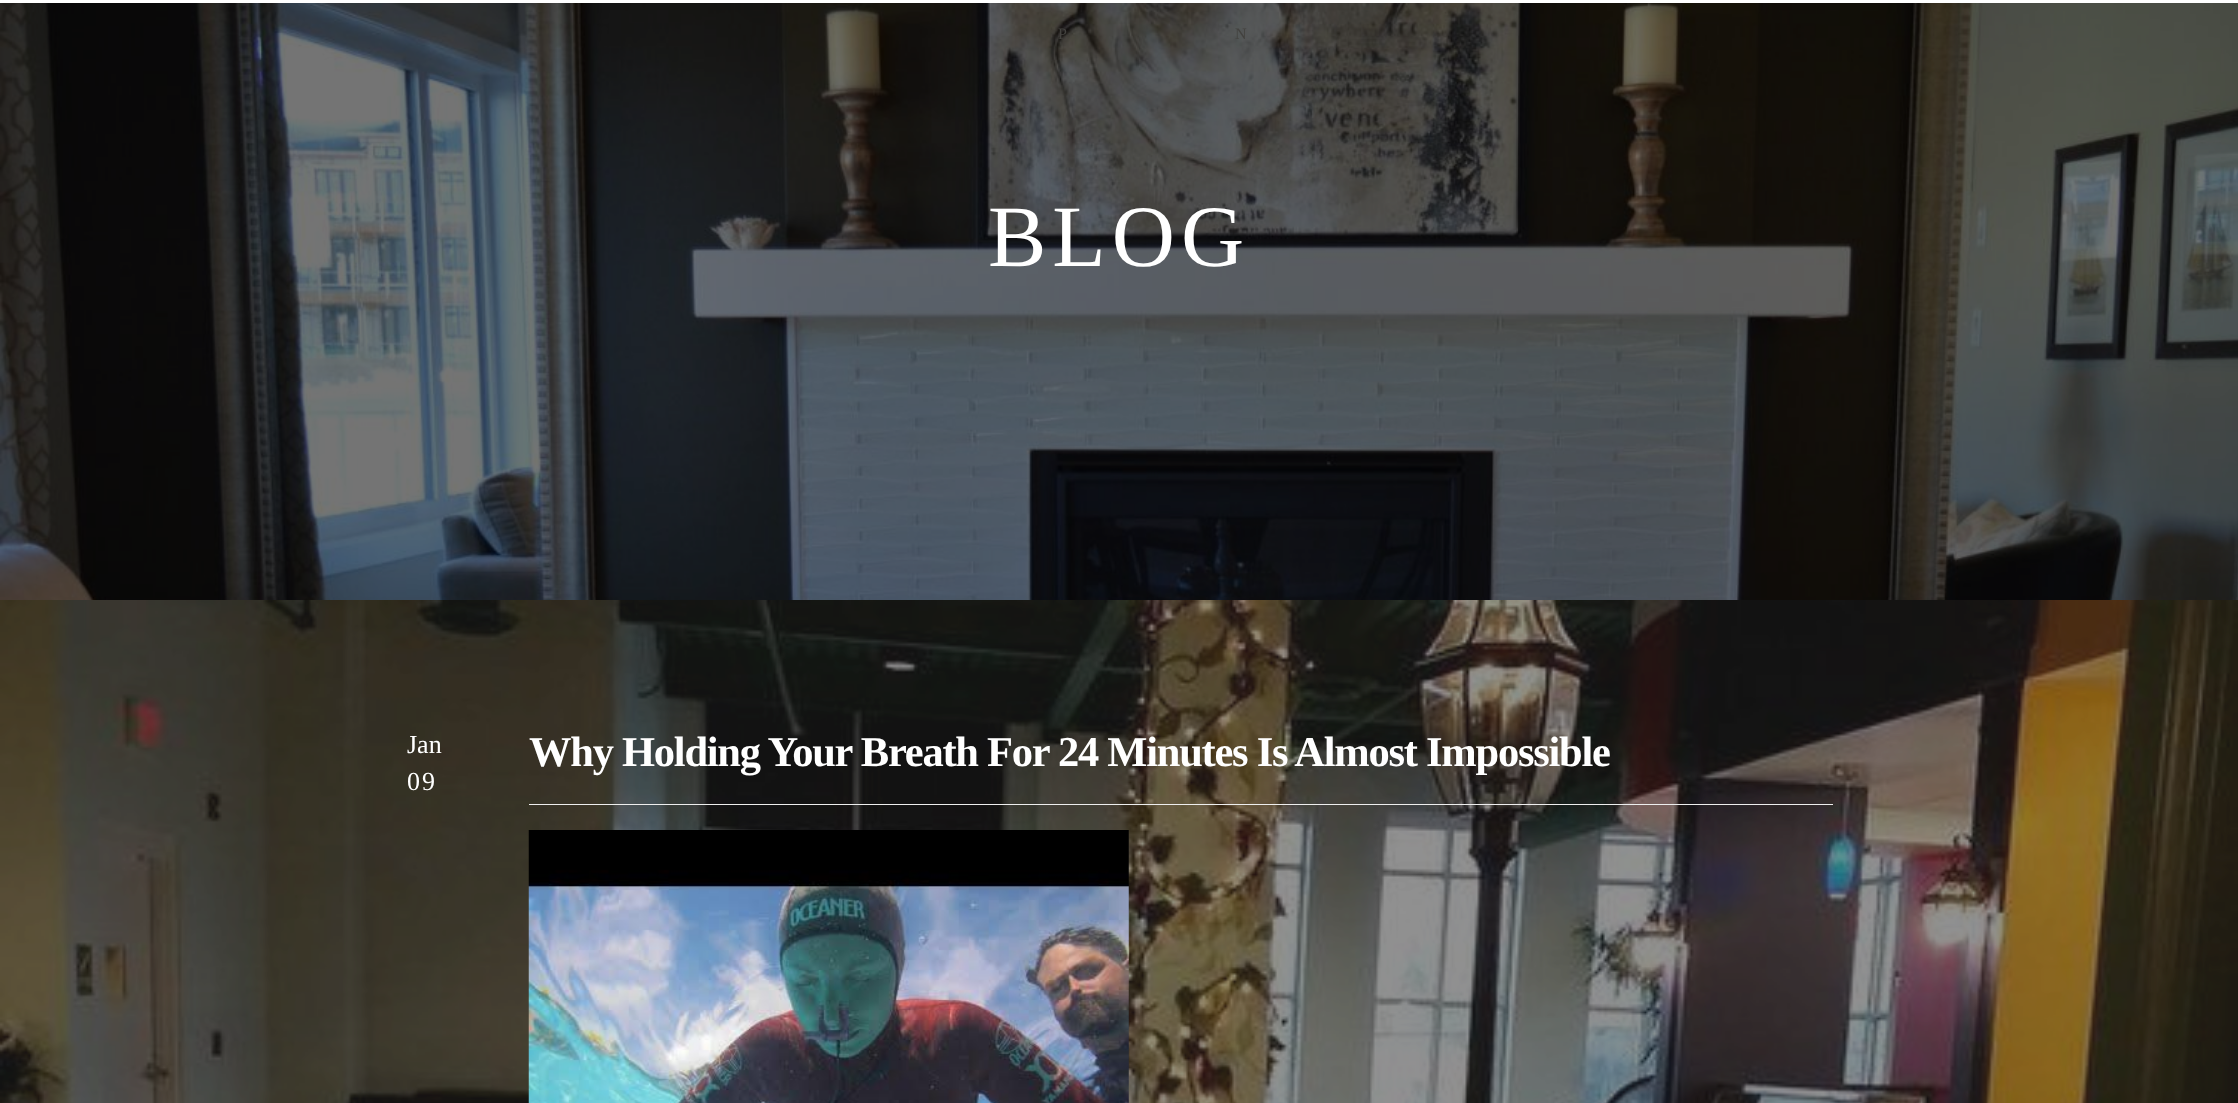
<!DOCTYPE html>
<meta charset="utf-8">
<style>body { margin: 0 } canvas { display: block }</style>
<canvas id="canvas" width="2238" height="1103"></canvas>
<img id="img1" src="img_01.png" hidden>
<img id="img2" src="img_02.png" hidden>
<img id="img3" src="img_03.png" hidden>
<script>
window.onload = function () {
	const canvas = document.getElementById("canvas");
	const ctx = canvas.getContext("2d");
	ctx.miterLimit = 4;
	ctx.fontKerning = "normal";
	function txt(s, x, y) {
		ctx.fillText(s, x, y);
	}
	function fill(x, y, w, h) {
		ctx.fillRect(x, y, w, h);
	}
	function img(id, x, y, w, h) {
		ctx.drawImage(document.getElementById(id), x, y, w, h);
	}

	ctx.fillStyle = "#FFFFFF";
	fill(0, 0, 2238, 1103);
	img("img1", 0, 3, 2238, 597);
	img("img2", 0, 600, 2238, 503);
	ctx.fillStyle = "#EEEEEE";
	fill(529, 804, 1304, 1);
	img("img3", 528, 830, 601, 273);
	ctx.letterSpacing = "2px";
	ctx.font = "16px Liberation Serif";
	ctx.fillStyle = "#43423F";
	txt("P", 1058, 39);
	txt("N", 1235, 39);
	ctx.letterSpacing = "6px";
	ctx.font = "87.5px Liberation Serif";
	ctx.fillStyle = "#FFFFFF";
	txt("BLOG", 988, 266);
	ctx.letterSpacing = "0px";
	ctx.font = "26px Liberation Serif";
	txt("Jan", 407, 753);
	ctx.letterSpacing = "2px";
	txt("09", 407, 790);
	ctx.letterSpacing = "-1.25px";
	ctx.font = "bold 42.5px Liberation Serif";
	txt("Why Holding Your Breath For 24 Minutes Is Almost Impossible", 529, 766);
};
</script>
